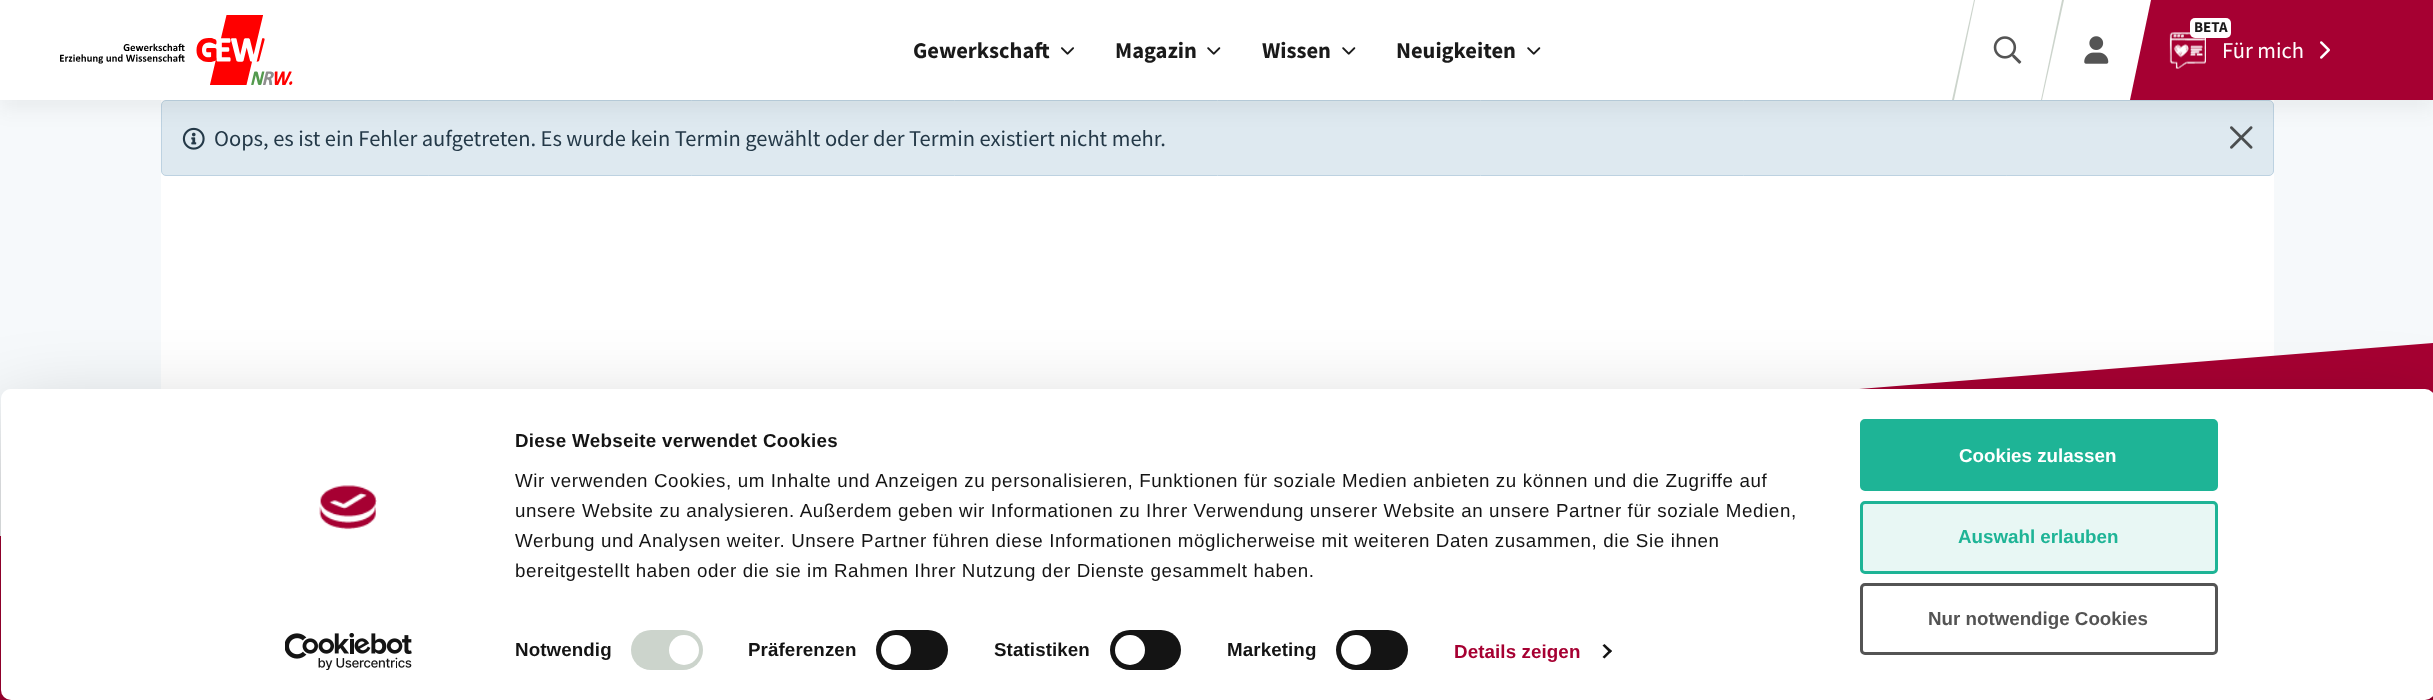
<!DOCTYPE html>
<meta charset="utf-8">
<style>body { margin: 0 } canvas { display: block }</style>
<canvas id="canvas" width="2433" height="700"></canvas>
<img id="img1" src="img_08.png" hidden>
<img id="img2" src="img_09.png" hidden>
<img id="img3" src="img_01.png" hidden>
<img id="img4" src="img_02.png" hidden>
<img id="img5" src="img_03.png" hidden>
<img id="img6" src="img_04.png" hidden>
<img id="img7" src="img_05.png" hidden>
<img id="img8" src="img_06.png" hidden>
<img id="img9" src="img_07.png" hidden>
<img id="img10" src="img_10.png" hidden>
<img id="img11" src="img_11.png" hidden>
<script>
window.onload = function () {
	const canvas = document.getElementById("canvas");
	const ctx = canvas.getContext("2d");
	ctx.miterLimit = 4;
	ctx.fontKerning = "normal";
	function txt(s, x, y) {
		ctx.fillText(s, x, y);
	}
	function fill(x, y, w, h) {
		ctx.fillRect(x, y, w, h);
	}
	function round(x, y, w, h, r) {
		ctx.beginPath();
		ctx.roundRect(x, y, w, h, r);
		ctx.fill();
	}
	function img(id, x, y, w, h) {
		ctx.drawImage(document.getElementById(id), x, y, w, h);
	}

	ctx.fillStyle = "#F6F9FB";
	fill(0, 0, 2433, 700);
	ctx.fillStyle = "#FFFFFF";
	fill(161, 100, 2113, 289);
	ctx.fillStyle = "#DEE9F0";
	ctx.beginPath();
	ctx.roundRect(161.5, 100.5, 2112, 75, 4.5);
	ctx.fill();
	ctx.strokeStyle = "#BDD2E1";
	ctx.stroke();
	img("img1", 182, 127, 23, 23);
	img("img2", 2230, 126, 23, 23);
	ctx.fillStyle = "rgba(26, 26, 26, 0.06)";
	ctx.filter = "blur(10px)";
	ctx.beginPath();
	ctx.rect(0, 10, 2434, 100);
	ctx.fill();
	ctx.filter = "none";
	ctx.fillStyle = "#FFFFFF";
	fill(0, 0, 2151, 100);
	img("img3", 60, 15, 233, 70);
	img("img4", 1061, 47, 13, 8);
	img("img5", 1207, 47, 14, 8);
	img("img5", 1342, 47, 14, 8);
	img("img5", 1527, 47, 14, 8);
	ctx.fillStyle = "#CCD4CC";
	ctx.beginPath();
	ctx.moveTo(1974, 0);
	ctx.lineTo(1975, 0);
	ctx.lineTo(1954, 100);
	ctx.lineTo(1952, 100);
	ctx.closePath();
	ctx.fill();
	img("img6", 1993, 36, 29, 28);
	ctx.beginPath();
	ctx.moveTo(2062, 0);
	ctx.lineTo(2064, 0);
	ctx.lineTo(2042, 100);
	ctx.lineTo(2041, 100);
	ctx.closePath();
	ctx.fill();
	img("img7", 2084, 36, 25, 28);
	ctx.fillStyle = "#A60032";
	ctx.beginPath();
	ctx.moveTo(2151, 0);
	ctx.lineTo(2384, 0);
	ctx.lineTo(2363, 100);
	ctx.lineTo(2130, 100);
	ctx.closePath();
	ctx.fill();
	img("img8", 2169, 32, 37, 37);
	ctx.fillStyle = "#FFFFFF";
	round(2190, 18, 41, 20, 5);
	img("img9", 2320, 41, 10, 18);
	ctx.fillStyle = "#A60032";
	fill(2363, 0, 70, 100);
	fill(0, 536, 2433, 164);
	ctx.beginPath();
	ctx.moveTo(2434, 343);
	ctx.lineTo(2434, 538);
	ctx.lineTo(0, 538);
	ctx.closePath();
	ctx.fill();
	ctx.save();
	ctx.beginPath();
	ctx.moveTo(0, 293);
	ctx.lineTo(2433, 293);
	ctx.lineTo(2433, 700);
	ctx.lineTo(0, 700);
	ctx.closePath();
	ctx.moveTo(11, 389);
	ctx.lineTo(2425, 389);
	ctx.bezierCurveTo(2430.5, 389, 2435, 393.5, 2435, 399);
	ctx.lineTo(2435, 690);
	ctx.bezierCurveTo(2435, 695.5, 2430.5, 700, 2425, 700);
	ctx.lineTo(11, 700);
	ctx.bezierCurveTo(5.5, 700, 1, 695.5, 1, 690);
	ctx.lineTo(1, 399);
	ctx.bezierCurveTo(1, 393.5, 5.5, 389, 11, 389);
	ctx.closePath();
	ctx.clip("evenodd");
	ctx.fillStyle = "rgba(0, 0, 0, 0.3)";
	ctx.filter = "blur(44px)";
	ctx.beginPath();
	ctx.roundRect(1, 426, 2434, 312, 10);
	ctx.fill();
	ctx.filter = "none";
	ctx.restore();
	ctx.fillStyle = "#FFFFFF";
	round(1, 389, 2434, 311, 10);
	img("img10", 319, 485, 58, 45);
	img("img11", 285, 633, 127, 37);
	ctx.fillStyle = "#CCD4CC";
	round(631, 630, 72, 40, 20);
	ctx.fillStyle = "#FFFFFF";
	ctx.beginPath();
	ctx.arc(684, 650, 15, 0, Math.PI * 2);
	ctx.fill();
	ctx.fillStyle = "#141414";
	round(876, 630, 72, 40, 20);
	ctx.fillStyle = "#FFFFFF";
	ctx.beginPath();
	ctx.arc(896, 650, 15, 0, Math.PI * 2);
	ctx.fill();
	ctx.fillStyle = "#141414";
	round(1110, 630, 71, 40, 20);
	ctx.fillStyle = "#FFFFFF";
	ctx.beginPath();
	ctx.arc(1130, 650, 15, 0, Math.PI * 2);
	ctx.fill();
	ctx.fillStyle = "#141414";
	round(1336, 630, 72, 40, 20);
	ctx.fillStyle = "#FFFFFF";
	ctx.beginPath();
	ctx.arc(1356, 650, 15, 0, Math.PI * 2);
	ctx.fill();
	ctx.fillStyle = "#141414";
	ctx.beginPath();
	ctx.moveTo(1604.5, 644);
	ctx.lineTo(1612, 651);
	ctx.lineTo(1610, 653);
	ctx.lineTo(1602.5, 645.5);
	ctx.closePath();
	ctx.fill();
	ctx.beginPath();
	ctx.moveTo(1610, 649.5);
	ctx.lineTo(1612, 651);
	ctx.lineTo(1604.5, 658.5);
	ctx.lineTo(1602.5, 657);
	ctx.closePath();
	ctx.fill();
	ctx.fillStyle = "#1EB496";
	ctx.beginPath();
	ctx.roundRect(1861.5, 420.5, 355, 69, 3.5);
	ctx.fill();
	ctx.strokeStyle = "#1EB496";
	ctx.lineWidth = 3;
	ctx.stroke();
	ctx.fillStyle = "#E8F7F4";
	ctx.beginPath();
	ctx.roundRect(1861.5, 502.5, 355, 70, 3.5);
	ctx.fill();
	ctx.stroke();
	ctx.beginPath();
	ctx.roundRect(1861.5, 584.5, 355, 69, 3.5);
	ctx.strokeStyle = "#545454";
	ctx.stroke();
	ctx.font = "bold 22.5px Source Sans Pro";
	ctx.fillStyle = "#1A1A1A";
	txt("Gewerkschaft", 913, 58);
	txt("Magazin", 1115, 58);
	txt("Wissen", 1262, 58);
	txt("Neuigkeiten", 1396, 58);
	ctx.font = "bold 15px Source Sans Pro";
	txt("BETA", 2194, 32);
	ctx.font = "22.5px Source Sans Pro";
	ctx.fillStyle = "#FFFFFF";
	txt("Für mich", 2222, 58);
	ctx.fillStyle = "#243948";
	txt("Oops, es ist ein Fehler aufgetreten. Es wurde kein Termin gewählt oder der Termin existiert nicht mehr.", 214, 146);
	ctx.letterSpacing = "0.3px";
	ctx.font = "bold 18.75px Liberation Sans";
	ctx.fillStyle = "#141414";
	txt("Diese Webseite verwendet Cookies", 515, 447);
	ctx.letterSpacing = "0.62px";
	ctx.font = "18.75px Liberation Sans";
	txt("Wir verwenden Cookies, um Inhalte und Anzeigen zu personalisieren, Funktionen für soziale Medien anbieten zu können und die Zugriffe auf", 515, 487);
	txt("unsere Website zu analysieren. Außerdem geben wir Informationen zu Ihrer Verwendung unserer Website an unsere Partner für soziale Medien,", 515, 517);
	txt("Werbung und Analysen weiter. Unsere Partner führen diese Informationen möglicherweise mit weiteren Daten zusammen, die Sie ihnen", 515, 547);
	txt("bereitgestellt haben oder die sie im Rahmen Ihrer Nutzung der Dienste gesammelt haben.", 515, 577);
	ctx.letterSpacing = "0.1px";
	ctx.font = "bold 18.75px Liberation Sans";
	txt("Notwendig", 515, 656);
	txt("Präferenzen", 748, 656);
	txt("Statistiken", 994, 656);
	txt("Marketing", 1227, 656);
	ctx.fillStyle = "#A60032";
	txt("Details zeigen", 1454, 658);
	ctx.letterSpacing = "0px";
	ctx.fillStyle = "#FFFFFF";
	txt("Cookies zulassen", 1959, 462);
	ctx.fillStyle = "#1EB496";
	txt("Auswahl erlauben", 1958, 543);
	ctx.fillStyle = "#545454";
	txt("Nur notwendige Cookies", 1928, 625);
};
</script>
